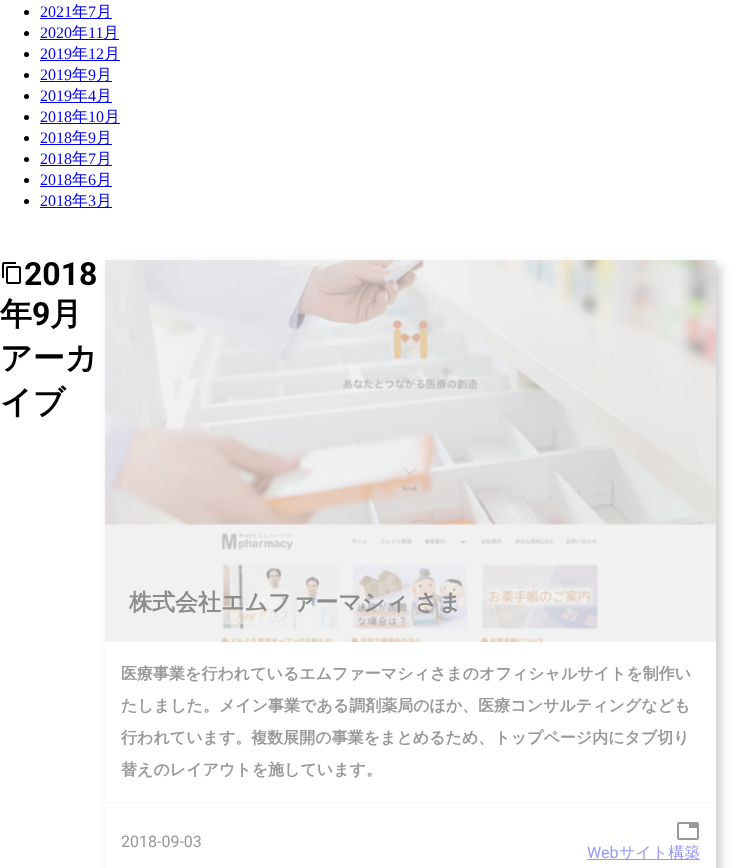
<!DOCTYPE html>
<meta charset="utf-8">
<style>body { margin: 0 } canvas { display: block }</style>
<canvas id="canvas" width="746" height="868"></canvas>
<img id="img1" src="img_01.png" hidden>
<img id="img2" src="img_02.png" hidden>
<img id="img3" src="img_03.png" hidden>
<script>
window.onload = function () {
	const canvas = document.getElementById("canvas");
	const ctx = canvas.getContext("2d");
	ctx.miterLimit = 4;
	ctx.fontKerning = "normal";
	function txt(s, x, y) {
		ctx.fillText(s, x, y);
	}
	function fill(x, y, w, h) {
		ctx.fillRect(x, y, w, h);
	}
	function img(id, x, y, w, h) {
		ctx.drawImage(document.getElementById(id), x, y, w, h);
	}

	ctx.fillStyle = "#FFFFFF";
	fill(0, 0, 746, 868);
	ctx.fillStyle = "#F1F1F1";
	fill(105, 260, 611, 382);
	ctx.fillStyle = "#000000";
	ctx.beginPath();
	ctx.arc(26.5, 12.5, 2.5, 0, Math.PI * 2);
	ctx.fill();
	ctx.fillStyle = "#0000EE";
	fill(40, 18, 72, 1);
	ctx.fillStyle = "#000000";
	ctx.beginPath();
	ctx.arc(26.5, 33.5, 2.5, 0, Math.PI * 2);
	ctx.fill();
	ctx.fillStyle = "#0000EE";
	fill(40, 39, 79, 1);
	ctx.fillStyle = "#000000";
	ctx.beginPath();
	ctx.arc(26.5, 54.5, 2.5, 0, Math.PI * 2);
	ctx.fill();
	ctx.fillStyle = "#0000EE";
	fill(40, 60, 80, 1);
	ctx.fillStyle = "#000000";
	ctx.beginPath();
	ctx.arc(26.5, 75.5, 2.5, 0, Math.PI * 2);
	ctx.fill();
	ctx.fillStyle = "#0000EE";
	fill(40, 81, 72, 1);
	ctx.fillStyle = "#000000";
	ctx.beginPath();
	ctx.arc(26.5, 96.5, 2.5, 0, Math.PI * 2);
	ctx.fill();
	ctx.fillStyle = "#0000EE";
	fill(40, 102, 72, 1);
	ctx.fillStyle = "#000000";
	ctx.beginPath();
	ctx.arc(26.5, 117.5, 2.5, 0, Math.PI * 2);
	ctx.fill();
	ctx.fillStyle = "#0000EE";
	fill(40, 123, 80, 1);
	ctx.fillStyle = "#000000";
	ctx.beginPath();
	ctx.arc(26.5, 138.5, 2.5, 0, Math.PI * 2);
	ctx.fill();
	ctx.fillStyle = "#0000EE";
	fill(40, 144, 72, 1);
	ctx.fillStyle = "#000000";
	ctx.beginPath();
	ctx.arc(26.5, 159.5, 2.5, 0, Math.PI * 2);
	ctx.fill();
	ctx.fillStyle = "#0000EE";
	fill(40, 165, 72, 1);
	ctx.fillStyle = "#000000";
	ctx.beginPath();
	ctx.arc(26.5, 180.5, 2.5, 0, Math.PI * 2);
	ctx.fill();
	ctx.fillStyle = "#0000EE";
	fill(40, 186, 72, 1);
	ctx.fillStyle = "#000000";
	ctx.beginPath();
	ctx.arc(26.5, 201.5, 2.5, 0, Math.PI * 2);
	ctx.fill();
	ctx.fillStyle = "#0000EE";
	fill(40, 207, 72, 1);
	img("img1", 2, 262, 19, 22);
	img("img2", 105, 260, 611, 382);
	ctx.save();
	ctx.beginPath();
	ctx.moveTo(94, 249);
	ctx.lineTo(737, 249);
	ctx.lineTo(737, 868);
	ctx.lineTo(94, 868);
	ctx.closePath();
	ctx.moveTo(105, 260);
	ctx.lineTo(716, 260);
	ctx.lineTo(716, 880);
	ctx.lineTo(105, 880);
	ctx.closePath();
	ctx.clip("evenodd");
	ctx.fillStyle = "rgba(164, 164, 164, 0.54)";
	ctx.filter = "blur(5px)";
	ctx.beginPath();
	ctx.rect(110, 265, 611, 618);
	ctx.fill();
	ctx.filter = "none";
	ctx.restore();
	ctx.fillStyle = "#F5F5F5";
	fill(105, 802, 611, 1);
	img("img3", 677, 822, 22, 18);
	ctx.fillStyle = "#9898F8";
	fill(587, 859, 113, 1);
	ctx.font = "16px Liberation Serif";
	ctx.fillStyle = "#0000EE";
	txt("2021", 40, 17);
	ctx.font = "500 16px WenQuanYi Zen Hei";
	txt("年", 72, 17);
	ctx.font = "16px Liberation Serif";
	txt("7", 88, 17);
	ctx.font = "500 16px WenQuanYi Zen Hei";
	txt("月", 96, 17);
	ctx.font = "16px Liberation Serif";
	txt("2020", 40, 38);
	ctx.font = "500 16px WenQuanYi Zen Hei";
	txt("年", 72, 38);
	ctx.font = "16px Liberation Serif";
	txt("11", 88, 38);
	ctx.font = "500 16px WenQuanYi Zen Hei";
	txt("月", 103, 38);
	ctx.font = "16px Liberation Serif";
	txt("2019", 40, 59);
	ctx.font = "500 16px WenQuanYi Zen Hei";
	txt("年", 72, 59);
	ctx.font = "16px Liberation Serif";
	txt("12", 88, 59);
	ctx.font = "500 16px WenQuanYi Zen Hei";
	txt("月", 104, 59);
	ctx.font = "16px Liberation Serif";
	txt("2019", 40, 80);
	ctx.font = "500 16px WenQuanYi Zen Hei";
	txt("年", 72, 80);
	ctx.font = "16px Liberation Serif";
	txt("9", 88, 80);
	ctx.font = "500 16px WenQuanYi Zen Hei";
	txt("月", 96, 80);
	ctx.font = "16px Liberation Serif";
	txt("2019", 40, 101);
	ctx.font = "500 16px WenQuanYi Zen Hei";
	txt("年", 72, 101);
	ctx.font = "16px Liberation Serif";
	txt("4", 88, 101);
	ctx.font = "500 16px WenQuanYi Zen Hei";
	txt("月", 96, 101);
	ctx.font = "16px Liberation Serif";
	txt("2018", 40, 122);
	ctx.font = "500 16px WenQuanYi Zen Hei";
	txt("年", 72, 122);
	ctx.font = "16px Liberation Serif";
	txt("10", 88, 122);
	ctx.font = "500 16px WenQuanYi Zen Hei";
	txt("月", 104, 122);
	ctx.font = "16px Liberation Serif";
	txt("2018", 40, 143);
	ctx.font = "500 16px WenQuanYi Zen Hei";
	txt("年", 72, 143);
	ctx.font = "16px Liberation Serif";
	txt("9", 88, 143);
	ctx.font = "500 16px WenQuanYi Zen Hei";
	txt("月", 96, 143);
	ctx.font = "16px Liberation Serif";
	txt("2018", 40, 164);
	ctx.font = "500 16px WenQuanYi Zen Hei";
	txt("年", 72, 164);
	ctx.font = "16px Liberation Serif";
	txt("7", 88, 164);
	ctx.font = "500 16px WenQuanYi Zen Hei";
	txt("月", 96, 164);
	ctx.font = "16px Liberation Serif";
	txt("2018", 40, 185);
	ctx.font = "500 16px WenQuanYi Zen Hei";
	txt("年", 72, 185);
	ctx.font = "16px Liberation Serif";
	txt("6", 88, 185);
	ctx.font = "500 16px WenQuanYi Zen Hei";
	txt("月", 96, 185);
	ctx.font = "16px Liberation Serif";
	txt("2018", 40, 206);
	ctx.font = "500 16px WenQuanYi Zen Hei";
	txt("年", 72, 206);
	ctx.font = "16px Liberation Serif";
	txt("3", 88, 206);
	ctx.font = "500 16px WenQuanYi Zen Hei";
	txt("月", 96, 206);
	ctx.font = "bold 32px Roboto";
	ctx.fillStyle = "#000000";
	txt("2018", 24, 285);
	ctx.font = "bold 32px WenQuanYi Zen Hei";
	txt("年", 0, 325);
	ctx.font = "bold 32px Roboto";
	txt("9", 32, 325);
	ctx.font = "bold 32px WenQuanYi Zen Hei";
	txt("月", 50, 325);
	txt("アーカ", 0, 369);
	txt("イブ", 0, 413);
	ctx.wordSpacing = "-1px";
	ctx.font = "bold 23px WenQuanYi Zen Hei";
	ctx.fillStyle = "#8D8C8D";
	txt("株式会社エムファーマシィ さま", 129, 610);
	ctx.wordSpacing = "0px";
	ctx.font = "bold 16px WenQuanYi Zen Hei";
	ctx.fillStyle = "#989898";
	txt("医療事業を行われているエムファーマシィさまのオフィシャルサイトを制作い", 121, 679);
	txt("たしました。メイン事業である調剤薬局のほか、医療コンサルティングなども", 121, 711);
	txt("行われています。複数展開の事業をまとめるため、トップページ内にタブ切り", 121, 743);
	txt("替えのレイアウトを施しています。", 121, 775);
	ctx.font = "16px Roboto";
	txt("2018-09-03", 121, 847);
	ctx.fillStyle = "#9898F8";
	txt("Web", 587, 858);
	ctx.font = "500 16px WenQuanYi Zen Hei";
	txt("サイト構築", 619, 858);
};
</script>
